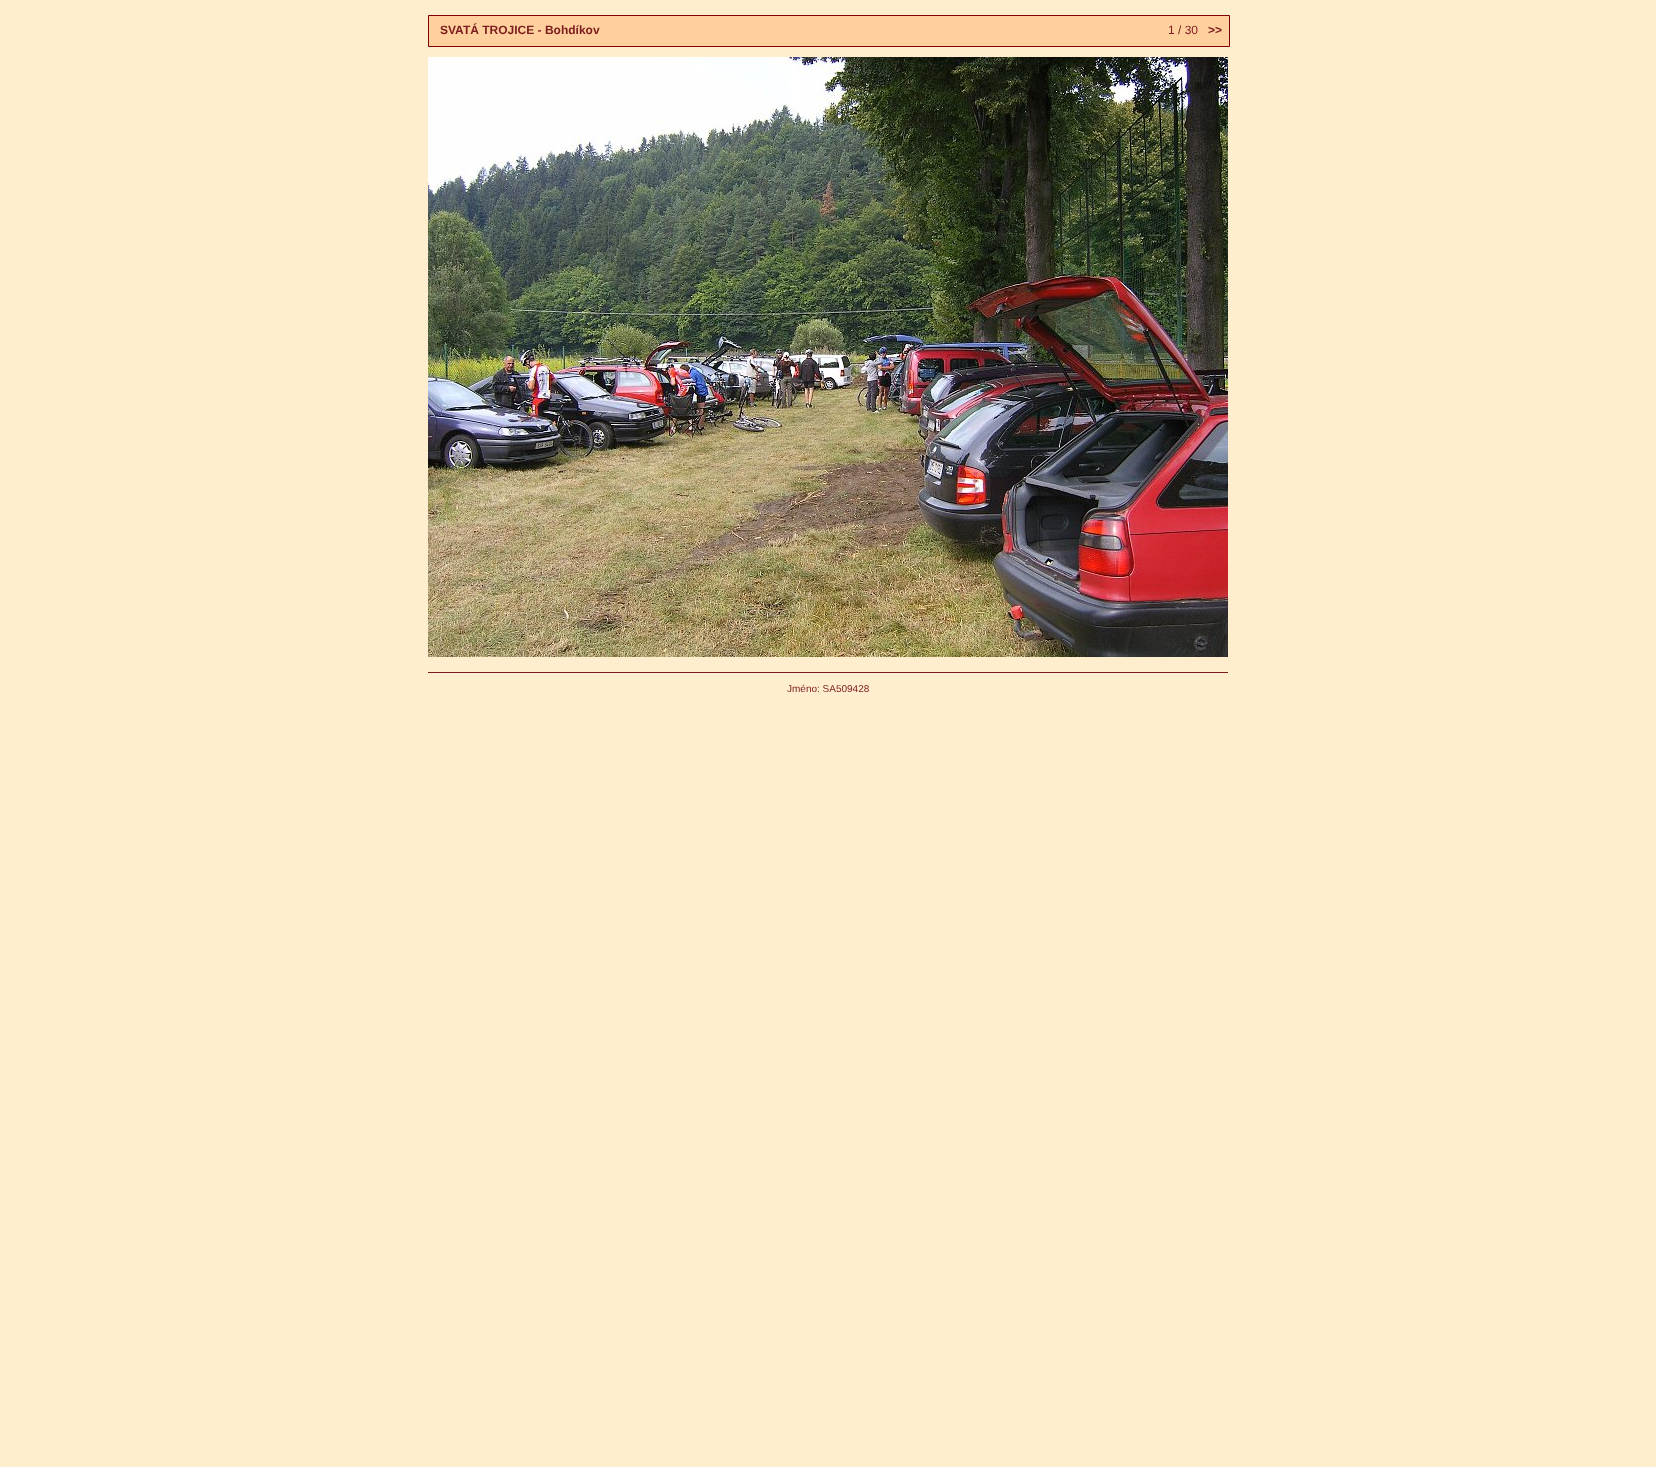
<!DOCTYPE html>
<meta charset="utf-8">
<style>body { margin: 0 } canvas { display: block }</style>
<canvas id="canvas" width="1656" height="1467"></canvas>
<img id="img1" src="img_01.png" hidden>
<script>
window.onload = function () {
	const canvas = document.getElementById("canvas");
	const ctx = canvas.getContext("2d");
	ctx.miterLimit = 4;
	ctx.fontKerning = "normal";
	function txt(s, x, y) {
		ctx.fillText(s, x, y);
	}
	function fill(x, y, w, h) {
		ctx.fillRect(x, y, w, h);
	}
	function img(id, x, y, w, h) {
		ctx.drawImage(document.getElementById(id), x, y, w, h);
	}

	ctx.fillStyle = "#FEEECE";
	fill(0, 0, 1656, 1467);
	ctx.fillStyle = "#FED09E";
	ctx.beginPath();
	ctx.rect(428.5, 15.5, 801, 31);
	ctx.fill();
	ctx.strokeStyle = "#800000";
	ctx.stroke();
	img("img1", 428, 57, 800, 600);
	ctx.fillStyle = "#7C1C1E";
	fill(428, 672, 800, 1);
	ctx.font = "bold 12px Liberation Sans";
	txt("SVATÁ TROJICE - Bohdíkov", 440, 34);
	ctx.font = "12px Liberation Sans";
	txt("1 / 30", 1168, 34);
	ctx.font = "bold 12px Liberation Sans";
	txt(">>", 1208, 34);
	ctx.font = "10px Liberation Sans";
	txt("Jméno: SA509428", 787, 692);
};
</script>
